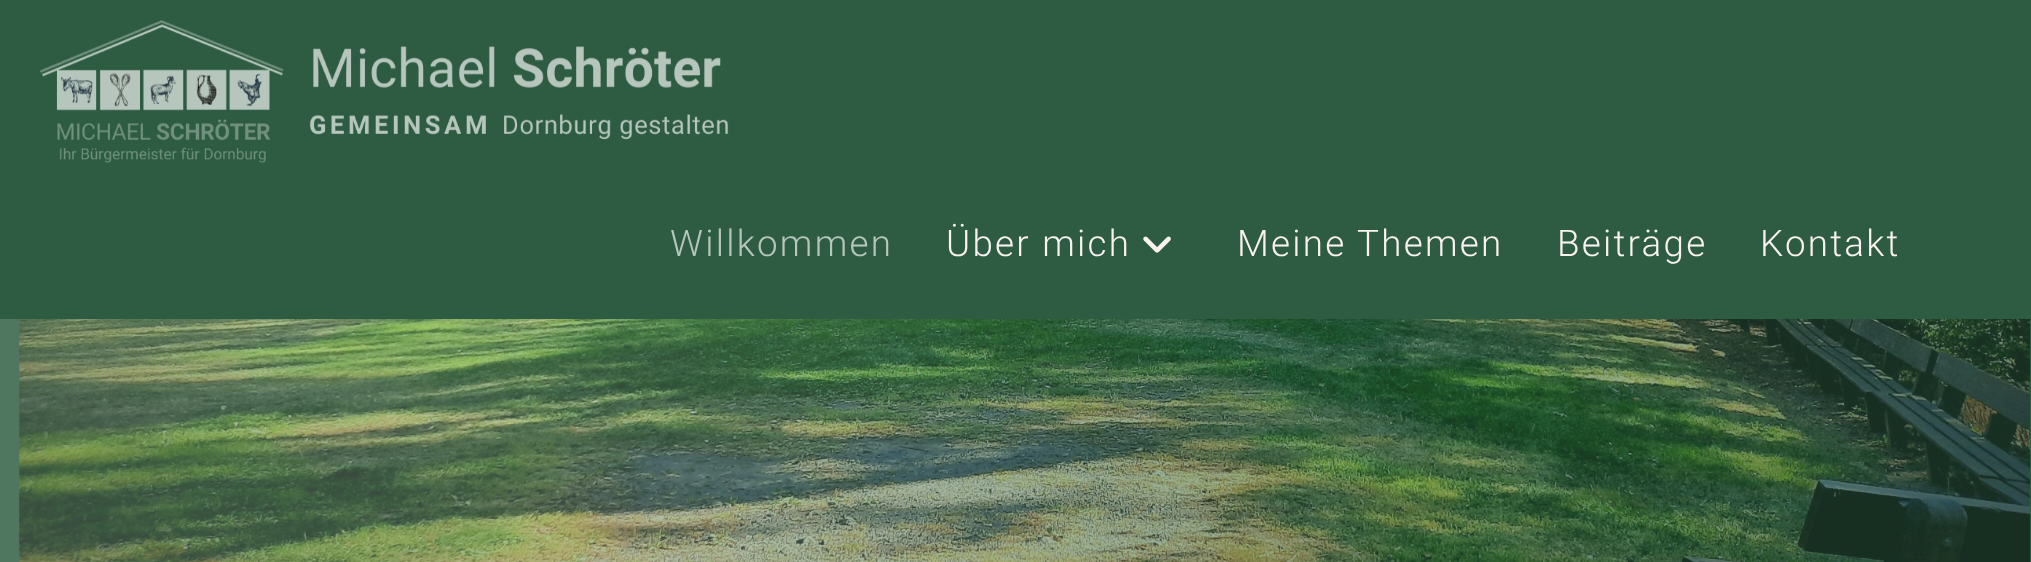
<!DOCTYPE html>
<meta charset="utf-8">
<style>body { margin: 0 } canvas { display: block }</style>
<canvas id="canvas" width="2031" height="562"></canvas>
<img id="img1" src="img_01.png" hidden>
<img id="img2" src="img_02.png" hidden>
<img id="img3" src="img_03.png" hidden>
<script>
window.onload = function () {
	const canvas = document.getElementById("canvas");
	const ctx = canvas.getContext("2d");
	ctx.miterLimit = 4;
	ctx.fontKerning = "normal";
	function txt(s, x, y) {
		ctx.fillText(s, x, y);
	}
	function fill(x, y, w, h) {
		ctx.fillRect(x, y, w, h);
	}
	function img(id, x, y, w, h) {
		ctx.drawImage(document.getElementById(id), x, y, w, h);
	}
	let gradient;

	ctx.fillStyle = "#2E5C43";
	fill(0, 0, 2031, 562);
	img("img1", 40, 20, 689, 143);
	img("img2", 1143, 236, 28, 17);
	img("img3", 19, 319, 2011, 243);
	gradient = ctx.createLinearGradient(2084, 109, -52, 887);
	gradient.addColorStop(0.4, "rgba(46, 92, 67, 0.5)");
	gradient.addColorStop(0.7, "rgba(113, 144, 125, 0.5)");
	ctx.fillStyle = gradient;
	fill(0, 319, 2030, 243);
	ctx.letterSpacing = "2.25px";
	ctx.font = "300 36.75px Roboto";
	ctx.fillStyle = "#B6C6BC";
	txt("Willkommen", 670, 256);
	ctx.fillStyle = "#F9F2EF";
	txt("Über mich", 946, 256);
	txt("Meine Themen", 1237, 256);
	txt("Beiträge", 1557, 256);
	txt("Kontakt", 1760, 256);
};
</script>
